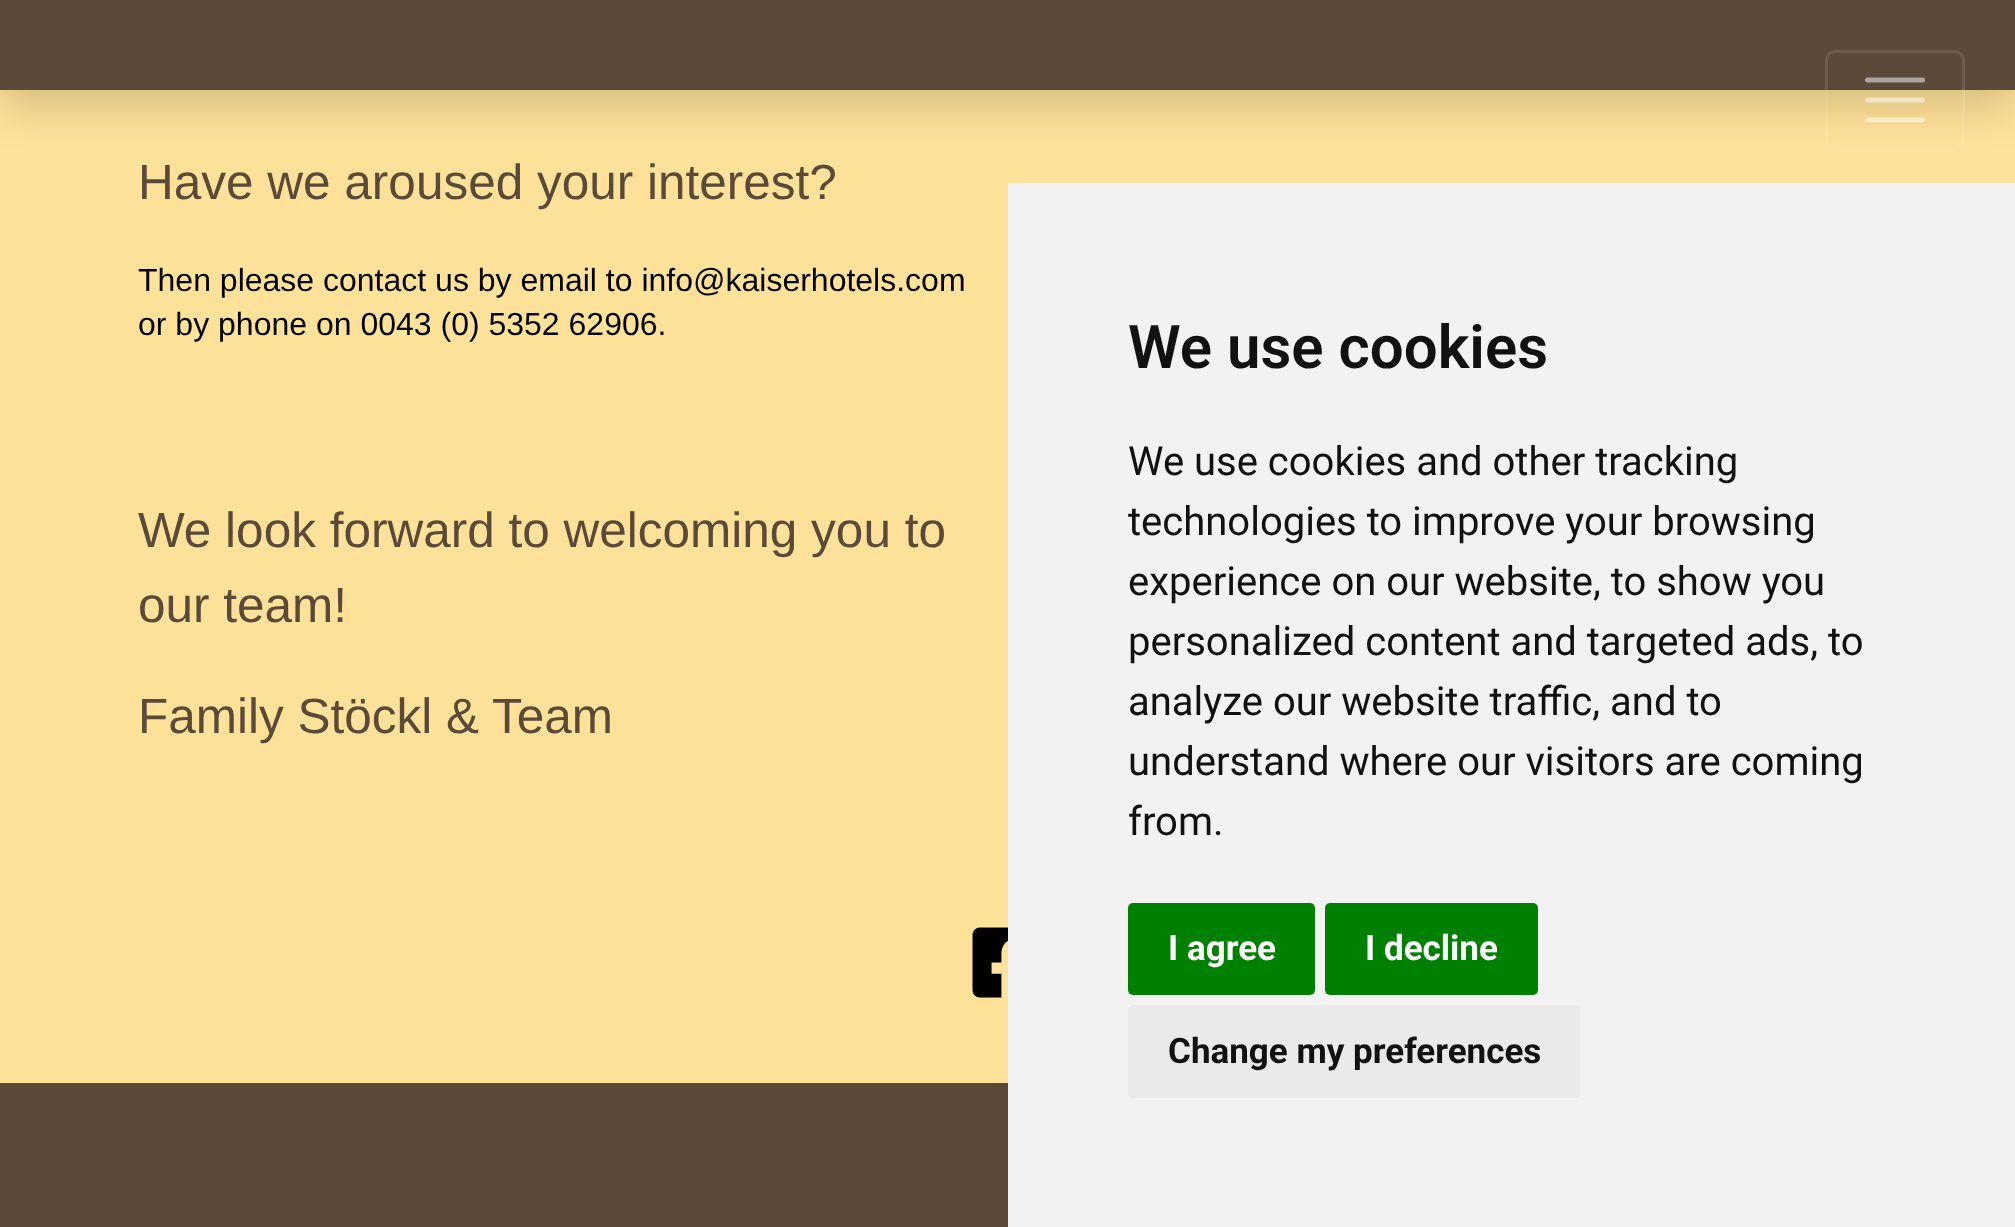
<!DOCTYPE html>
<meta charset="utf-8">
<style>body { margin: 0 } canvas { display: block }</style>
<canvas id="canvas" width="2015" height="1227"></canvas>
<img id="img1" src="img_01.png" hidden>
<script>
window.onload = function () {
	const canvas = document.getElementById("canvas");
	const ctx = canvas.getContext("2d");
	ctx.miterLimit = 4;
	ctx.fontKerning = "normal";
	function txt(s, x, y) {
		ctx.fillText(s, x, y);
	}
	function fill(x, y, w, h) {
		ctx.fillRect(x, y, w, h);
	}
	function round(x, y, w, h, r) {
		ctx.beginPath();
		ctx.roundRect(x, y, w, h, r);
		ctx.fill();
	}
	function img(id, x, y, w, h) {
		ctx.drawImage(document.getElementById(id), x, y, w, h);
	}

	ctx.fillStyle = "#FFE299";
	fill(0, 0, 2015, 1227);
	ctx.fillStyle = "rgba(0, 0, 0, 0.15)";
	ctx.filter = "blur(20px)";
	ctx.beginPath();
	ctx.rect(0, 20, 2015, 90);
	ctx.fill();
	ctx.filter = "none";
	ctx.fillStyle = "#5B4A3A";
	fill(0, 0, 2015, 90);
	ctx.beginPath();
	ctx.roundRect(1826.5, 51.5, 137, 97, 8.5);
	ctx.strokeStyle = "rgba(255, 255, 255, 0.1)";
	ctx.lineWidth = 3;
	ctx.stroke();
	ctx.beginPath();
	ctx.moveTo(1867.5, 80);
	ctx.lineTo(1922.5, 80);
	ctx.moveTo(1867.5, 100);
	ctx.lineTo(1922.5, 100);
	ctx.moveTo(1867.5, 120);
	ctx.lineTo(1922.5, 120);
	ctx.strokeStyle = "rgba(255, 255, 255, 0.5)";
	ctx.lineWidth = 5;
	ctx.lineCap = "round";
	ctx.stroke();
	img("img1", 972, 927, 36, 71);
	ctx.fillStyle = "#F2F2F2";
	fill(1008, 183, 1007, 1044);
	ctx.fillStyle = "#008000";
	round(1128, 903, 187, 92, 5);
	round(1325, 903, 213, 92, 5);
	ctx.fillStyle = "#EAEAEA";
	round(1128, 1005, 452, 93, 5);
	ctx.fillStyle = "#5B4A3A";
	fill(0, 1083, 1008, 144);
	ctx.font = "49.5px Liberation Sans";
	txt("Have we aroused your interest?", 138, 199);
	ctx.font = "32px Liberation Sans";
	ctx.fillStyle = "#000000";
	txt("Then please contact us by email to info@kaiserhotels.com", 138, 291);
	txt("or by phone on 0043 (0) 5352 62906.", 138, 335);
	ctx.font = "49.5px Liberation Sans";
	ctx.fillStyle = "#5B4A3A";
	txt("We look forward to welcoming you to", 138, 547);
	txt("our team!", 138, 622);
	txt("Family Stöckl & Team", 138, 733);
	ctx.font = "600 60px Roboto";
	ctx.fillStyle = "#111111";
	txt("We use cookies", 1128, 368);
	ctx.font = "40px Roboto";
	txt("We use cookies and other tracking", 1128, 475);
	txt("technologies to improve your browsing", 1128, 535);
	txt("experience on our website, to show you", 1128, 595);
	txt("personalized content and targeted ads, to", 1128, 655);
	txt("analyze our website traffic, and to", 1128, 715);
	txt("understand where our visitors are coming", 1128, 775);
	txt("from.", 1128, 835);
	ctx.font = "bold 35px Roboto";
	ctx.fillStyle = "#FFFFFF";
	txt("I agree", 1168, 960);
	txt("I decline", 1365, 960);
	ctx.fillStyle = "#111111";
	txt("Change my preferences", 1168, 1063);
};
</script>
